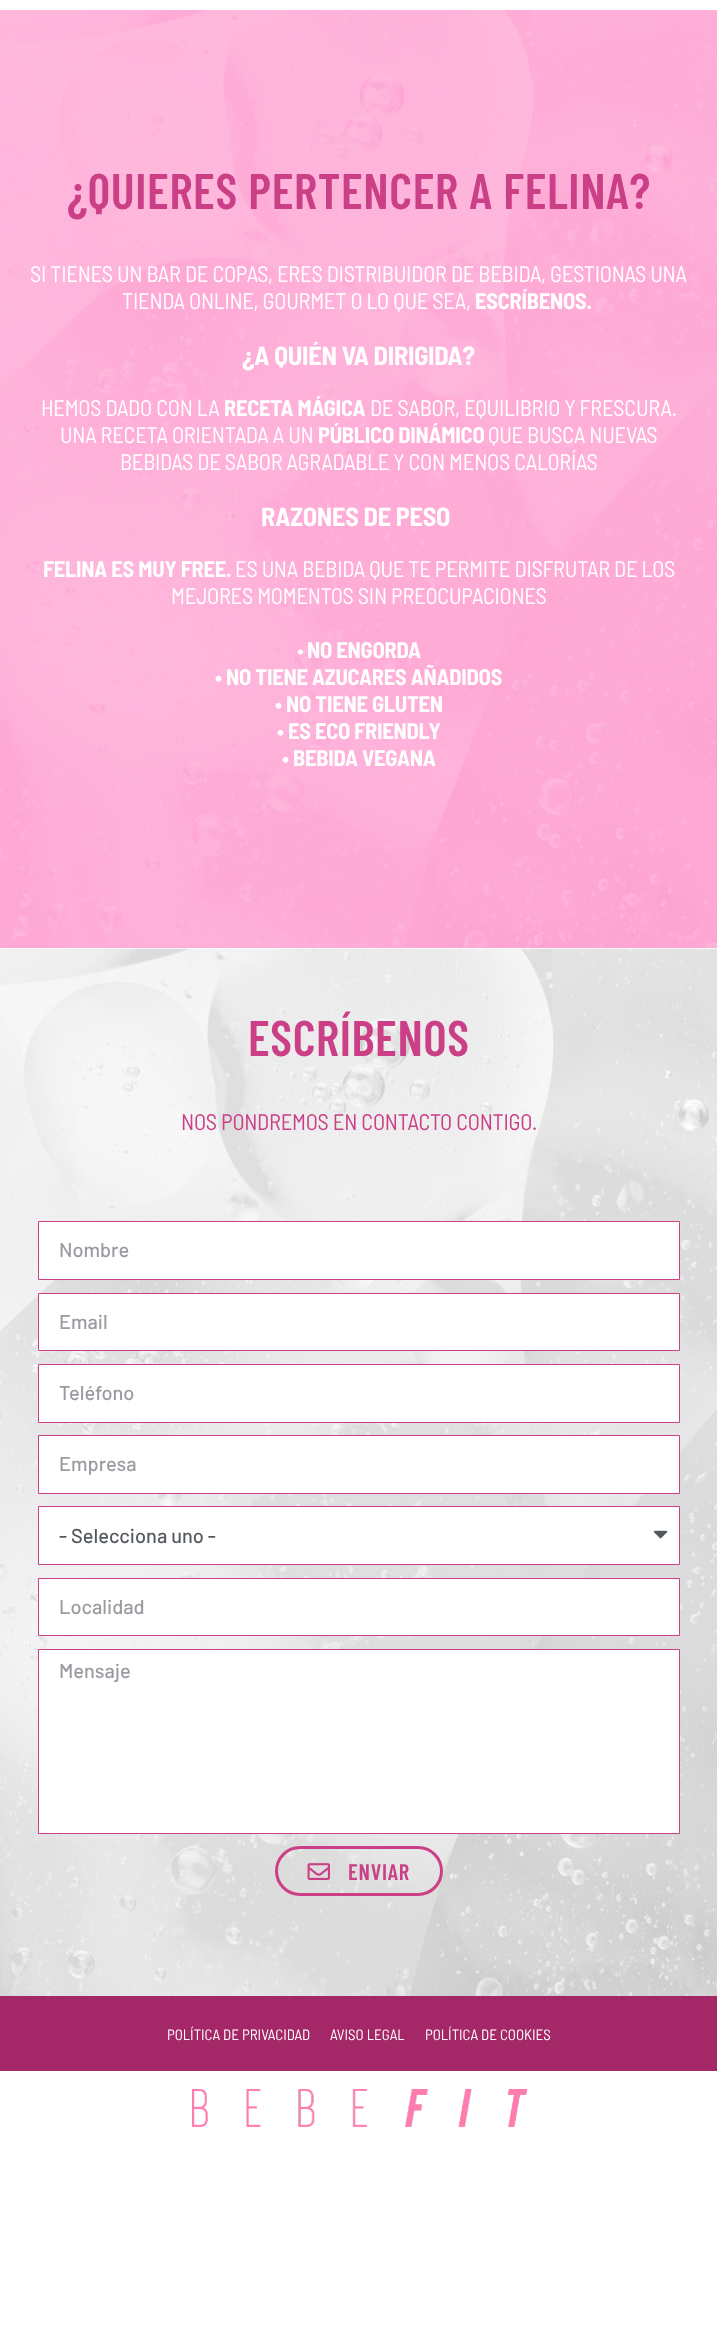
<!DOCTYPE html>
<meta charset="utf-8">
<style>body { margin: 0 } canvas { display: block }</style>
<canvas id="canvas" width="717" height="2336"></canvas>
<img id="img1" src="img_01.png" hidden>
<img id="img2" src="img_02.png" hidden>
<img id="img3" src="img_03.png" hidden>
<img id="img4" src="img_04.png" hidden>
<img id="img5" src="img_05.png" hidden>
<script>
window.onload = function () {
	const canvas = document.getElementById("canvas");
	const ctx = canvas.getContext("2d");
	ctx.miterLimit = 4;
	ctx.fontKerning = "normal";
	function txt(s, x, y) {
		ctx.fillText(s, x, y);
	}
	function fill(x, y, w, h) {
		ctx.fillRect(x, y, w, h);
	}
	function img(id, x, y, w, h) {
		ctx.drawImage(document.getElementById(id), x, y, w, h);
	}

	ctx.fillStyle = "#FFFFFF";
	fill(0, 0, 717, 2336);
	ctx.fillStyle = "#FFA6D4";
	fill(0, 947, 717, 1);
	img("img1", 0, 10, 717, 938);
	img("img2", 0, 948, 717, 1048);
	ctx.fillStyle = "#FFFFFF";
	ctx.beginPath();
	ctx.rect(38.5, 1221.5, 641, 58);
	ctx.fill();
	ctx.strokeStyle = "#CB3F87";
	ctx.stroke();
	ctx.beginPath();
	ctx.rect(38.5, 1293.5, 641, 57);
	ctx.fill();
	ctx.stroke();
	ctx.beginPath();
	ctx.rect(38.5, 1364.5, 641, 58);
	ctx.fill();
	ctx.stroke();
	ctx.beginPath();
	ctx.rect(38.5, 1435.5, 641, 58);
	ctx.fill();
	ctx.stroke();
	ctx.beginPath();
	ctx.rect(38.5, 1506.5, 641, 58);
	ctx.fill();
	ctx.stroke();
	img("img3", 653, 1530, 15, 9);
	ctx.beginPath();
	ctx.rect(38.5, 1578.5, 641, 57);
	ctx.fill();
	ctx.stroke();
	ctx.beginPath();
	ctx.rect(38.5, 1649.5, 641, 184);
	ctx.fill();
	ctx.stroke();
	ctx.beginPath();
	ctx.roundRect(276.5, 1847.5, 165, 47, 23.5);
	ctx.lineWidth = 3;
	ctx.stroke();
	img("img4", 307, 1863, 23, 17);
	ctx.fillStyle = "#A42767";
	fill(0, 1996, 717, 75);
	img("img5", 192, 2089, 336, 39);
	ctx.letterSpacing = "0.6px";
	ctx.font = "600 50px Barlow Condensed";
	ctx.fillStyle = "#CB3F87";
	txt("¿QUIERES PERTENCER A FELINA?", 67, 209);
	ctx.letterSpacing = "-0.25px";
	ctx.font = "22.5px Barlow Semi Condensed";
	ctx.fillStyle = "#FFFFFF";
	txt("SI TIENES UN BAR DE COPAS, ERES DISTRIBUIDOR DE BEBIDA, GESTIONAS UNA", 30, 282);
	txt("TIENDA ONLINE, GOURMET O LO QUE SEA,", 122, 309);
	ctx.font = "bold 22.5px Barlow Semi Condensed";
	txt("ESCRÍBENOS.", 475, 309);
	ctx.font = "bold 26.25px Barlow Semi Condensed";
	txt("¿A QUIÉN VA DIRIGIDA?", 242, 365);
	ctx.font = "22.5px Barlow Semi Condensed";
	txt("HEMOS DADO CON LA", 41, 416);
	ctx.font = "bold 22.5px Barlow Semi Condensed";
	txt("RECETA MÁGICA", 224, 416);
	ctx.font = "22.5px Barlow Semi Condensed";
	txt("DE SABOR, EQUILIBRIO Y FRESCURA.", 370, 416);
	txt("UNA RECETA ORIENTADA A UN", 60, 443);
	ctx.font = "bold 22.5px Barlow Semi Condensed";
	txt("PÚBLICO DINÁMICO", 318, 443);
	ctx.font = "22.5px Barlow Semi Condensed";
	txt("QUE BUSCA NUEVAS", 488, 443);
	txt("BEBIDAS DE SABOR AGRADABLE Y CON MENOS CALORÍAS", 120, 470);
	ctx.font = "bold 26.25px Barlow Semi Condensed";
	txt("RAZONES DE PESO", 261, 526);
	ctx.font = "bold 22.5px Barlow Semi Condensed";
	txt("FELINA ES MUY FREE.", 43, 577);
	ctx.font = "22.5px Barlow Semi Condensed";
	txt("ES UNA BEBIDA QUE TE PERMITE DISFRUTAR DE LOS", 235, 577);
	txt("MEJORES MOMENTOS SIN PREOCUPACIONES", 171, 604);
	txt("•", 297, 658);
	ctx.font = "bold 22.5px Barlow Semi Condensed";
	txt("NO ENGORDA", 307, 658);
	txt("• NO TIENE AZUCARES AÑADIDOS", 215, 685);
	txt("• NO TIENE GLUTEN", 275, 712);
	txt("• ES ECO FRIENDLY", 277, 739);
	txt("• BEBIDA VEGANA", 282, 766);
	ctx.letterSpacing = "0.6px";
	ctx.font = "600 50px Barlow Condensed";
	ctx.fillStyle = "#CB3F87";
	txt("ESCRÍBENOS", 248, 1056);
	ctx.letterSpacing = "-0.25px";
	ctx.font = "22.5px Barlow Semi Condensed";
	txt("NOS PONDREMOS EN CONTACTO CONTIGO.", 181, 1130);
	ctx.letterSpacing = "0px";
	ctx.font = "500 20px Barlow";
	ctx.fillStyle = "#989B9F";
	txt("Nombre", 59, 1257);
	txt("Email", 59, 1329);
	txt("Teléfono", 59, 1400);
	txt("Empresa", 59, 1471);
	ctx.fillStyle = "#54595F";
	txt("- Selecciona uno -", 59, 1543);
	ctx.fillStyle = "#989B9F";
	txt("Localidad", 59, 1614);
	txt("Mensaje", 59, 1678);
	ctx.letterSpacing = "0.75px";
	ctx.font = "600 22.5px Barlow Condensed";
	ctx.fillStyle = "#CB3F87";
	txt("ENVIAR", 348, 1880);
	ctx.letterSpacing = "0px";
	ctx.font = "15px Barlow Semi Condensed";
	ctx.fillStyle = "#FFFFFF";
	txt("POLÍTICA DE PRIVACIDAD", 167, 2040);
	txt("AVISO LEGAL", 330, 2040);
	txt("POLÍTICA DE COOKIES", 425, 2040);
};
</script>
